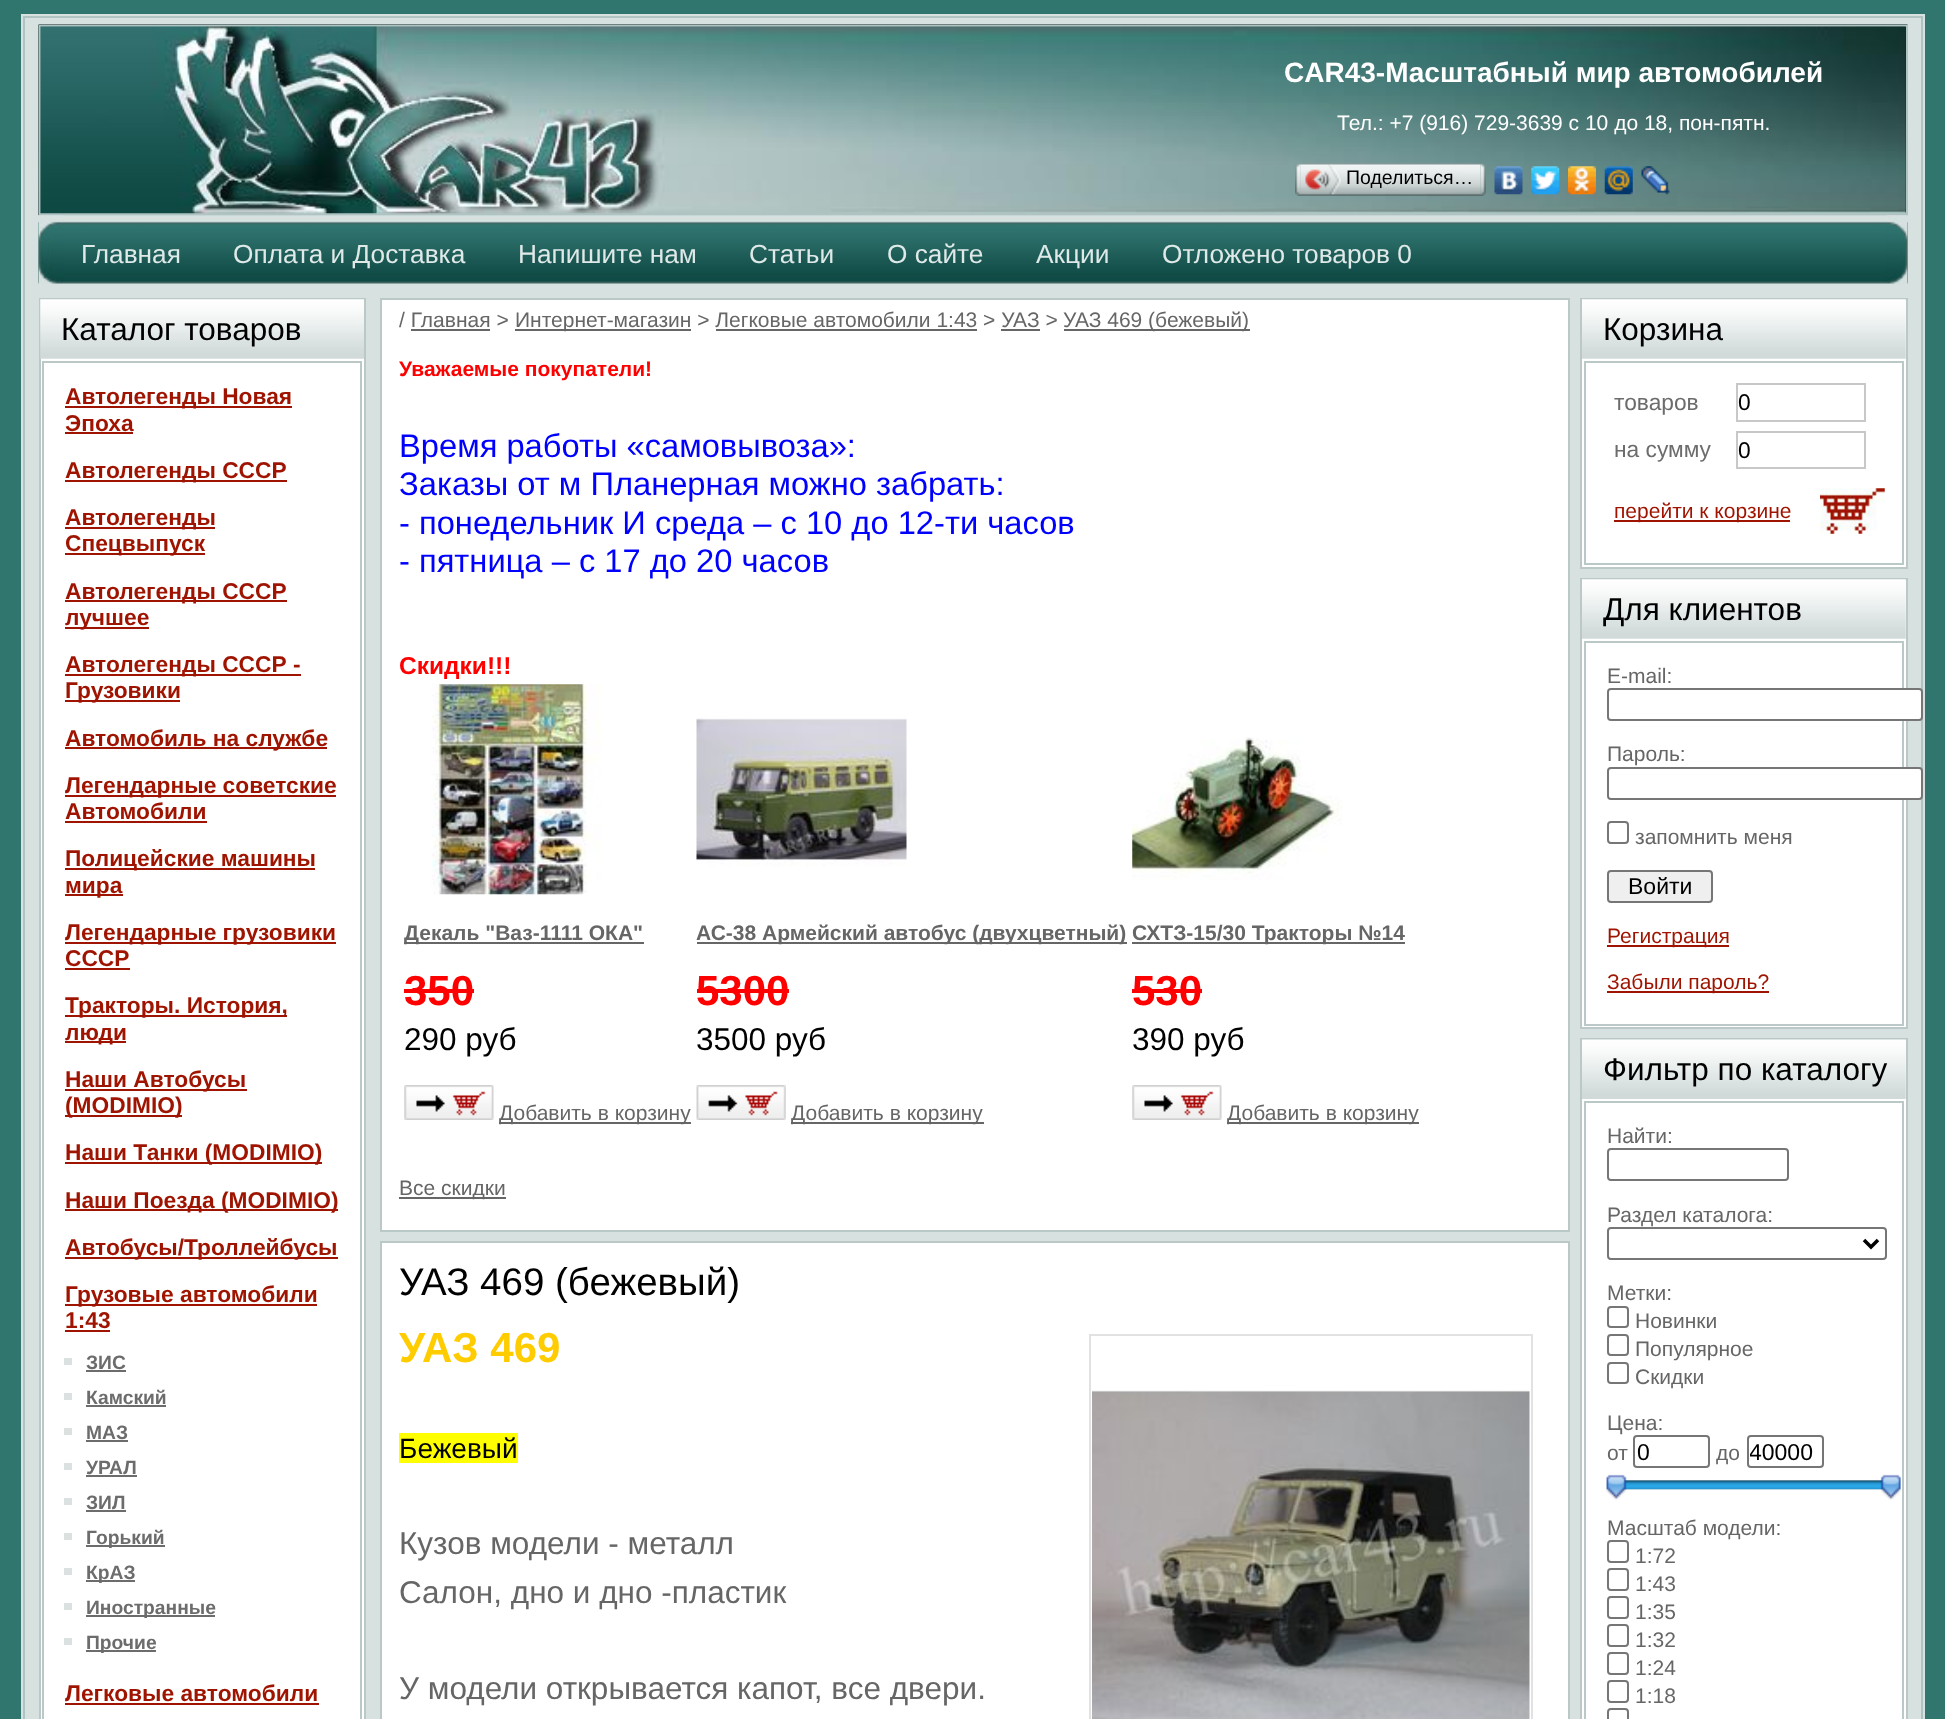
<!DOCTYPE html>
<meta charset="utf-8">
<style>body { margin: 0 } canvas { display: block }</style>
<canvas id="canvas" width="1945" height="1719"></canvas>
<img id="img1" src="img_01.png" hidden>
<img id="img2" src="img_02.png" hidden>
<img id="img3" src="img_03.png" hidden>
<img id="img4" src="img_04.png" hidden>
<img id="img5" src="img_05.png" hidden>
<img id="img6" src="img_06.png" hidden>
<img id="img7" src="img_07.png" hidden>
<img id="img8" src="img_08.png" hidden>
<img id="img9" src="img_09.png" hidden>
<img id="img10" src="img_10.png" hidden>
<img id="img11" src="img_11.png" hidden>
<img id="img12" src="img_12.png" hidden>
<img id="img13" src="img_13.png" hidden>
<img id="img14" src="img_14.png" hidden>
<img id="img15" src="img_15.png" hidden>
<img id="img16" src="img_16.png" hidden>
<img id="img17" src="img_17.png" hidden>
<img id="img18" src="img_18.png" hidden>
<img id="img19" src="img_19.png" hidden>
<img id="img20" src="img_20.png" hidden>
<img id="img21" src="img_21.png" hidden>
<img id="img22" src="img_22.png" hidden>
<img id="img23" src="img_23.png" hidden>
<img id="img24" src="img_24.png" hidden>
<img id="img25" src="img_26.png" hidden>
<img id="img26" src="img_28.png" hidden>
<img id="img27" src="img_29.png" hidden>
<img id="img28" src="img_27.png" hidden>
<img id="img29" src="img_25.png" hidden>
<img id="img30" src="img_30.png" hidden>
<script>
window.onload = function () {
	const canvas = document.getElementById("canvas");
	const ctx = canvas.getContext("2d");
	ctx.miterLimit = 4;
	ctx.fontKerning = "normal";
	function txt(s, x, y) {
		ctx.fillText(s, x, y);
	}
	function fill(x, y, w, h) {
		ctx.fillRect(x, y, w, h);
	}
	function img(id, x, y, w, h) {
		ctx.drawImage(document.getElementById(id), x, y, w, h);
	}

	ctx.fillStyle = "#31756F";
	fill(0, 0, 1945, 1719);
	ctx.strokeStyle = "#D6E1E0";
	ctx.lineWidth = 2;
	ctx.strokeRect(22, 15, 1902, 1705);
	ctx.fillStyle = "#D6E1E0";
	ctx.beginPath();
	ctx.rect(24, 17, 1898, 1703);
	ctx.fill();
	ctx.strokeStyle = "#AFC4C2";
	ctx.stroke();
	img("img1", 38, 24, 1870, 192);
	ctx.strokeRect(40, 26, 1867, 188);
	img("img2", 40, 26, 1866, 188);
	img("img3", 1300, 163, 181, 33);
	img("img4", 1295, 163, 6, 33);
	img("img5", 1305, 164, 36, 31);
	img("img6", 1480, 163, 6, 33);
	img("img7", 1494, 166, 29, 29);
	img("img8", 1531, 166, 29, 29);
	img("img9", 1568, 166, 28, 29);
	img("img10", 1604, 166, 29, 29);
	img("img11", 1641, 166, 29, 29);
	img("img12", 38, 215, 1870, 69);
	img("img13", 38, 215, 25, 69);
	img("img14", 1886, 215, 22, 70);
	ctx.fillStyle = "#FFFFFF";
	fill(41, 358, 323, 1361);
	ctx.strokeStyle = "#BAC9C8";
	ctx.strokeRect(40, 299, 325, 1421);
	img("img15", 40, 299, 324, 60);
	ctx.strokeRect(43, 362, 318, 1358);
	ctx.fillStyle = "#9F1400";
	fill(65, 406, 227, 2);
	fill(65, 432, 68, 2);
	fill(65, 480, 222, 2);
	fill(65, 527, 150, 2);
	fill(65, 553, 140, 2);
	fill(65, 600, 222, 2);
	fill(65, 627, 84, 2);
	fill(65, 674, 236, 2);
	fill(65, 700, 115, 2);
	fill(65, 747, 262, 2);
	fill(65, 795, 271, 2);
	fill(65, 821, 142, 2);
	fill(65, 868, 250, 2);
	fill(65, 894, 58, 2);
	fill(65, 942, 271, 2);
	fill(65, 968, 65, 2);
	fill(65, 1015, 222, 2);
	fill(65, 1041, 61, 2);
	fill(65, 1089, 182, 2);
	fill(65, 1115, 117, 2);
	fill(65, 1162, 257, 2);
	fill(65, 1209, 273, 2);
	fill(65, 1257, 273, 2);
	fill(65, 1304, 252, 2);
	fill(65, 1330, 45, 2);
	ctx.fillStyle = "#DBE1E1";
	fill(64, 1358, 8, 7);
	ctx.fillStyle = "#6C6C6C";
	fill(86, 1370, 40, 2);
	ctx.fillStyle = "#DBE1E1";
	fill(64, 1393, 8, 7);
	ctx.fillStyle = "#6C6C6C";
	fill(86, 1405, 80, 2);
	ctx.fillStyle = "#DBE1E1";
	fill(64, 1428, 8, 7);
	ctx.fillStyle = "#6C6C6C";
	fill(86, 1440, 42, 2);
	ctx.fillStyle = "#DBE1E1";
	fill(64, 1463, 8, 7);
	ctx.fillStyle = "#6C6C6C";
	fill(86, 1475, 51, 2);
	ctx.fillStyle = "#DBE1E1";
	fill(64, 1498, 8, 7);
	ctx.fillStyle = "#6C6C6C";
	fill(86, 1510, 40, 2);
	ctx.fillStyle = "#DBE1E1";
	fill(64, 1533, 8, 7);
	ctx.fillStyle = "#6C6C6C";
	fill(86, 1545, 79, 2);
	ctx.fillStyle = "#DBE1E1";
	fill(64, 1568, 8, 7);
	ctx.fillStyle = "#6C6C6C";
	fill(86, 1580, 49, 2);
	ctx.fillStyle = "#DBE1E1";
	fill(64, 1603, 8, 7);
	ctx.fillStyle = "#6C6C6C";
	fill(86, 1615, 129, 2);
	ctx.fillStyle = "#DBE1E1";
	fill(64, 1638, 8, 7);
	ctx.fillStyle = "#6C6C6C";
	fill(86, 1650, 70, 2);
	ctx.fillStyle = "#9F1400";
	fill(65, 1703, 254, 2);
	ctx.fillStyle = "#FFFFFF";
	ctx.beginPath();
	ctx.rect(381, 299, 1188, 932);
	ctx.fill();
	ctx.stroke();
	ctx.fillStyle = "#666666";
	fill(515, 329, 176, 2);
	fill(1064, 329, 186, 2);
	fill(411, 329, 79, 2);
	fill(716, 329, 261, 2);
	fill(1001, 329, 39, 2);
	img("img16", 431, 684, 170, 211);
	fill(404, 942, 240, 2);
	ctx.fillStyle = "#FF0000";
	fill(404, 989, 70, 4);
	img("img17", 404, 1085, 90, 35);
	ctx.fillStyle = "#666666";
	fill(499, 1122, 192, 2);
	img("img18", 696, 718, 211, 149);
	fill(697, 942, 430, 2);
	ctx.fillStyle = "#FF0000";
	fill(697, 989, 92, 4);
	img("img19", 696, 1085, 90, 35);
	ctx.fillStyle = "#666666";
	fill(791, 1122, 193, 2);
	img("img20", 1132, 737, 210, 143);
	fill(1132, 942, 273, 2);
	ctx.fillStyle = "#FF0000";
	fill(1132, 989, 70, 4);
	img("img17", 1132, 1085, 90, 35);
	ctx.fillStyle = "#666666";
	fill(1227, 1122, 192, 2);
	fill(399, 1197, 107, 2);
	ctx.fillStyle = "#FFFFFF";
	ctx.beginPath();
	ctx.rect(381, 1242, 1188, 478);
	ctx.fill();
	ctx.stroke();
	ctx.fillStyle = "#FFFF00";
	fill(399, 1433, 119, 30);
	ctx.strokeStyle = "#E2E2E2";
	ctx.strokeRect(1090, 1335, 442, 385);
	img("img21", 1092, 1390, 438, 329);
	ctx.fillStyle = "#FFFFFF";
	ctx.beginPath();
	ctx.rect(1581, 299, 326, 269);
	ctx.fill();
	ctx.strokeStyle = "#BAC9C8";
	ctx.stroke();
	img("img22", 1582, 299, 324, 60);
	ctx.strokeRect(1585, 362, 318, 202);
	ctx.strokeStyle = "#C8C8C8";
	ctx.strokeRect(1737, 384, 128, 37);
	ctx.strokeRect(1737, 432, 128, 36);
	ctx.fillStyle = "#9F1400";
	fill(1614, 520, 176, 2);
	img("img23", 1820, 488, 65, 46);
	ctx.fillStyle = "#FFFFFF";
	ctx.beginPath();
	ctx.rect(1581, 579, 326, 449);
	ctx.fill();
	ctx.strokeStyle = "#BAC9C8";
	ctx.stroke();
	img("img22", 1582, 579, 324, 60);
	ctx.strokeRect(1585, 642, 318, 383);
	ctx.beginPath();
	ctx.roundRect(1608, 689, 314, 31, 3);
	ctx.fill();
	ctx.strokeStyle = "#767676";
	ctx.stroke();
	ctx.beginPath();
	ctx.roundRect(1608, 768, 314, 31, 3);
	ctx.fill();
	ctx.stroke();
	ctx.beginPath();
	ctx.roundRect(1608, 822, 20, 21, 3);
	ctx.stroke();
	ctx.fillStyle = "#EFEFEF";
	ctx.beginPath();
	ctx.roundRect(1608, 871, 104, 31, 3);
	ctx.fill();
	ctx.stroke();
	ctx.fillStyle = "#9F1400";
	fill(1607, 945, 122, 2);
	fill(1607, 991, 162, 2);
	ctx.fillStyle = "#FFFFFF";
	ctx.beginPath();
	ctx.rect(1581, 1039, 326, 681);
	ctx.fill();
	ctx.strokeStyle = "#BAC9C8";
	ctx.stroke();
	img("img24", 1582, 1039, 324, 60);
	ctx.strokeRect(1585, 1102, 318, 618);
	ctx.beginPath();
	ctx.roundRect(1608, 1149, 180, 31, 3);
	ctx.strokeStyle = "#767676";
	ctx.stroke();
	ctx.beginPath();
	ctx.roundRect(1608, 1228, 278, 31, 3);
	ctx.stroke();
	ctx.beginPath();
	ctx.moveTo(1864, 1240);
	ctx.lineTo(1871, 1247);
	ctx.lineTo(1878, 1240);
	ctx.strokeStyle = "#000000";
	ctx.lineWidth = 3.5;
	ctx.stroke();
	ctx.beginPath();
	ctx.roundRect(1608, 1307, 20, 20, 3);
	ctx.strokeStyle = "#767676";
	ctx.lineWidth = 2;
	ctx.stroke();
	ctx.beginPath();
	ctx.roundRect(1608, 1335, 20, 20, 3);
	ctx.stroke();
	ctx.beginPath();
	ctx.roundRect(1608, 1363, 20, 20, 3);
	ctx.stroke();
	ctx.beginPath();
	ctx.roundRect(1634, 1436, 75, 31, 3);
	ctx.stroke();
	ctx.beginPath();
	ctx.roundRect(1748, 1436, 75, 31, 3);
	ctx.stroke();
	img("img25", 1620, 1480, 24, 10);
	img("img26", 1643, 1480, 219, 10);
	img("img27", 1862, 1480, 25, 10);
	img("img28", 1620, 1480, 267, 10);
	img("img29", 1606, 1474, 21, 26);
	img("img30", 1880, 1474, 21, 26);
	ctx.beginPath();
	ctx.roundRect(1608, 1541, 20, 21, 3);
	ctx.stroke();
	ctx.beginPath();
	ctx.roundRect(1608, 1569, 20, 21, 3);
	ctx.stroke();
	ctx.beginPath();
	ctx.roundRect(1608, 1597, 20, 21, 3);
	ctx.stroke();
	ctx.beginPath();
	ctx.roundRect(1608, 1625, 20, 21, 3);
	ctx.stroke();
	ctx.beginPath();
	ctx.roundRect(1608, 1653, 20, 21, 3);
	ctx.stroke();
	ctx.beginPath();
	ctx.roundRect(1608, 1681, 20, 21, 3);
	ctx.stroke();
	ctx.beginPath();
	ctx.roundRect(1608, 1709, 20, 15, 3);
	ctx.stroke();
	ctx.font = "bold 28px Liberation Sans";
	txt("CAR43-Масштабный мир автомобилей", 1284, 82);
	ctx.font = "21px Liberation Sans";
	txt("Тел.: +7 (916) 729-3639 с 10 до 18, пон-пятн.", 1337, 130);
	ctx.font = "19.5px Liberation Sans";
	ctx.fillStyle = "#000000";
	txt("Поделиться…", 1346, 184);
	ctx.font = "26.25px Liberation Sans";
	ctx.fillStyle = "#DEE9E8";
	txt("Главная", 81, 263);
	txt("Оплата и Доставка", 233, 263);
	txt("Напишите нам", 518, 263);
	txt("Статьи", 749, 263);
	txt("О сайте", 887, 263);
	txt("Акции", 1036, 263);
	txt("Отложено товаров 0", 1162, 263);
	ctx.font = "31.5px Liberation Sans";
	ctx.fillStyle = "#000000";
	txt("Каталог товаров", 61, 340);
	ctx.font = "bold 22.75px Liberation Sans";
	ctx.fillStyle = "#9F1400";
	txt("Автолегенды Новая", 65, 404);
	txt("Эпоха", 65, 431);
	txt("Автолегенды СССР", 65, 478);
	txt("Автолегенды", 65, 525);
	txt("Спецвыпуск", 65, 551);
	txt("Автолегенды СССР", 65, 599);
	txt("лучшее", 65, 625);
	txt("Автолегенды СССР -", 65, 672);
	txt("Грузовики", 65, 698);
	txt("Автомобиль на службе", 65, 746);
	txt("Легендарные советские", 65, 793);
	txt("Автомобили", 65, 819);
	txt("Полицейские машины", 65, 866);
	txt("мира", 65, 893);
	txt("Легендарные грузовики", 65, 940);
	txt("СССР", 65, 966);
	txt("Тракторы. История,", 65, 1013);
	txt("люди", 65, 1040);
	txt("Наши Автобусы", 65, 1087);
	txt("(MODIMIO)", 65, 1113);
	txt("Наши Танки (MODIMIO)", 65, 1160);
	txt("Наши Поезда (MODIMIO)", 65, 1208);
	txt("Автобусы/Троллейбусы", 65, 1255);
	txt("Грузовые автомобили", 65, 1302);
	txt("1:43", 65, 1328);
	ctx.font = "bold 19.25px Liberation Sans";
	ctx.fillStyle = "#6C6C6C";
	txt("ЗИС", 86, 1369);
	txt("Камский", 86, 1404);
	txt("МАЗ", 86, 1439);
	txt("УРАЛ", 86, 1474);
	txt("ЗИЛ", 86, 1509);
	txt("Горький", 86, 1544);
	txt("КрАЗ", 86, 1579);
	txt("Иностранные", 86, 1614);
	txt("Прочие", 86, 1649);
	ctx.font = "bold 22.75px Liberation Sans";
	ctx.fillStyle = "#9F1400";
	txt("Легковые автомобили", 65, 1701);
	ctx.font = "21px Liberation Sans";
	ctx.fillStyle = "#666666";
	txt("/ Главная >", 399, 327);
	txt("Интернет-магазин > Легковые автомобили 1:43 > УАЗ >", 515, 327);
	txt("УАЗ 469 (бежевый)", 1063, 327);
	ctx.font = "bold 21px Liberation Sans";
	ctx.fillStyle = "#FF0000";
	txt("Уважаемые покупатели!", 399, 376);
	ctx.font = "32.7px Liberation Sans";
	ctx.fillStyle = "#0000FF";
	txt("Время работы «самовывоза»:", 399, 457);
	txt("Заказы от м Планерная можно забрать:", 399, 495);
	txt("- понедельник И среда – с 10 до 12-ти часов", 399, 534);
	txt("- пятница – с 17 до 20 часов", 399, 572);
	ctx.font = "bold 24.5px Liberation Sans";
	ctx.fillStyle = "#FF0000";
	txt("Скидки!!!", 399, 674);
	ctx.font = "bold 21px Liberation Sans";
	ctx.fillStyle = "#666666";
	txt("Декаль \"Ваз-1111 ОКА\"", 404, 940);
	ctx.font = "bold 42px Liberation Sans";
	ctx.fillStyle = "#FF0000";
	txt("350", 404, 1005);
	ctx.font = "31.5px Liberation Sans";
	ctx.fillStyle = "#000000";
	txt("290 руб", 404, 1050);
	ctx.font = "21px Liberation Sans";
	ctx.fillStyle = "#666666";
	txt("Добавить в корзину", 499, 1120);
	ctx.font = "bold 21px Liberation Sans";
	txt("АС-38 Армейский автобус (двухцветный)", 696, 940);
	ctx.font = "bold 42px Liberation Sans";
	ctx.fillStyle = "#FF0000";
	txt("5300", 696, 1005);
	ctx.font = "31.5px Liberation Sans";
	ctx.fillStyle = "#000000";
	txt("3500 руб", 696, 1050);
	ctx.font = "21px Liberation Sans";
	ctx.fillStyle = "#666666";
	txt("Добавить в корзину", 791, 1120);
	ctx.font = "bold 21px Liberation Sans";
	txt("СХТЗ-15/30 Тракторы №14", 1132, 940);
	ctx.font = "bold 42px Liberation Sans";
	ctx.fillStyle = "#FF0000";
	txt("530", 1132, 1005);
	ctx.font = "31.5px Liberation Sans";
	ctx.fillStyle = "#000000";
	txt("390 руб", 1132, 1050);
	ctx.font = "21px Liberation Sans";
	ctx.fillStyle = "#666666";
	txt("Добавить в корзину", 1227, 1120);
	txt("Все скидки", 399, 1195);
	ctx.font = "38.5px Liberation Sans";
	ctx.fillStyle = "#000000";
	txt("УАЗ 469 (бежевый)", 399, 1295);
	ctx.font = "bold 42px Liberation Sans";
	ctx.fillStyle = "#FFCC00";
	txt("УАЗ 469", 399, 1362);
	ctx.font = "28px Liberation Sans";
	ctx.fillStyle = "#000000";
	txt("Бежевый", 399, 1458);
	ctx.font = "31.5px Liberation Sans";
	ctx.fillStyle = "#666666";
	txt("Кузов модели - металл", 399, 1554);
	txt("Салон, дно и дно -пластик", 399, 1603);
	txt("У модели открывается капот, все двери.", 399, 1699);
	ctx.fillStyle = "#000000";
	txt("Корзина", 1603, 340);
	ctx.font = "22.75px Liberation Sans";
	ctx.fillStyle = "#6C6C6C";
	txt("товаров", 1614, 410);
	ctx.fillStyle = "#000000";
	txt("0", 1738, 410);
	ctx.fillStyle = "#6C6C6C";
	txt("на сумму", 1614, 457);
	ctx.fillStyle = "#000000";
	txt("0", 1738, 458);
	ctx.font = "21px Liberation Sans";
	ctx.fillStyle = "#9F1400";
	txt("перейти к корзине", 1614, 518);
	ctx.font = "31.5px Liberation Sans";
	ctx.fillStyle = "#000000";
	txt("Для клиентов", 1603, 620);
	ctx.font = "21px Liberation Sans";
	ctx.fillStyle = "#666666";
	txt("E-mail:", 1607, 683);
	txt("Пароль:", 1607, 761);
	txt("запомнить меня", 1635, 844);
	ctx.font = "23px Liberation Sans";
	ctx.fillStyle = "#000000";
	txt("Войти", 1628, 894);
	ctx.font = "21px Liberation Sans";
	ctx.fillStyle = "#9F1400";
	txt("Регистрация", 1607, 943);
	txt("Забыли пароль?", 1607, 989);
	ctx.font = "31.5px Liberation Sans";
	ctx.fillStyle = "#000000";
	txt("Фильтр по каталогу", 1603, 1080);
	ctx.font = "21px Liberation Sans";
	ctx.fillStyle = "#666666";
	txt("Найти:", 1607, 1143);
	txt("Раздел каталога:", 1607, 1222);
	txt("Метки:", 1607, 1300);
	txt("Новинки", 1635, 1328);
	txt("Популярное", 1635, 1356);
	txt("Скидки", 1635, 1384);
	txt("Цена:", 1607, 1430);
	txt("от", 1607, 1460);
	ctx.font = "23px Liberation Sans";
	ctx.fillStyle = "#000000";
	txt("0", 1637, 1460);
	ctx.font = "21px Liberation Sans";
	ctx.fillStyle = "#666666";
	txt("до", 1716, 1460);
	ctx.save();
	ctx.beginPath();
	ctx.rect(1750, 1439, 70, 26);
	ctx.clip();
	ctx.font = "23px Liberation Sans";
	ctx.fillStyle = "#000000";
	txt("40000", 1749, 1460);
	ctx.restore();
	txt("Масштаб модели:", 1607, 1535);
	txt("1:72", 1635, 1563);
	txt("1:43", 1635, 1591);
	txt("1:35", 1635, 1619);
	txt("1:32", 1635, 1647);
	txt("1:24", 1635, 1675);
	txt("1:18", 1635, 1703);
};
</script>
